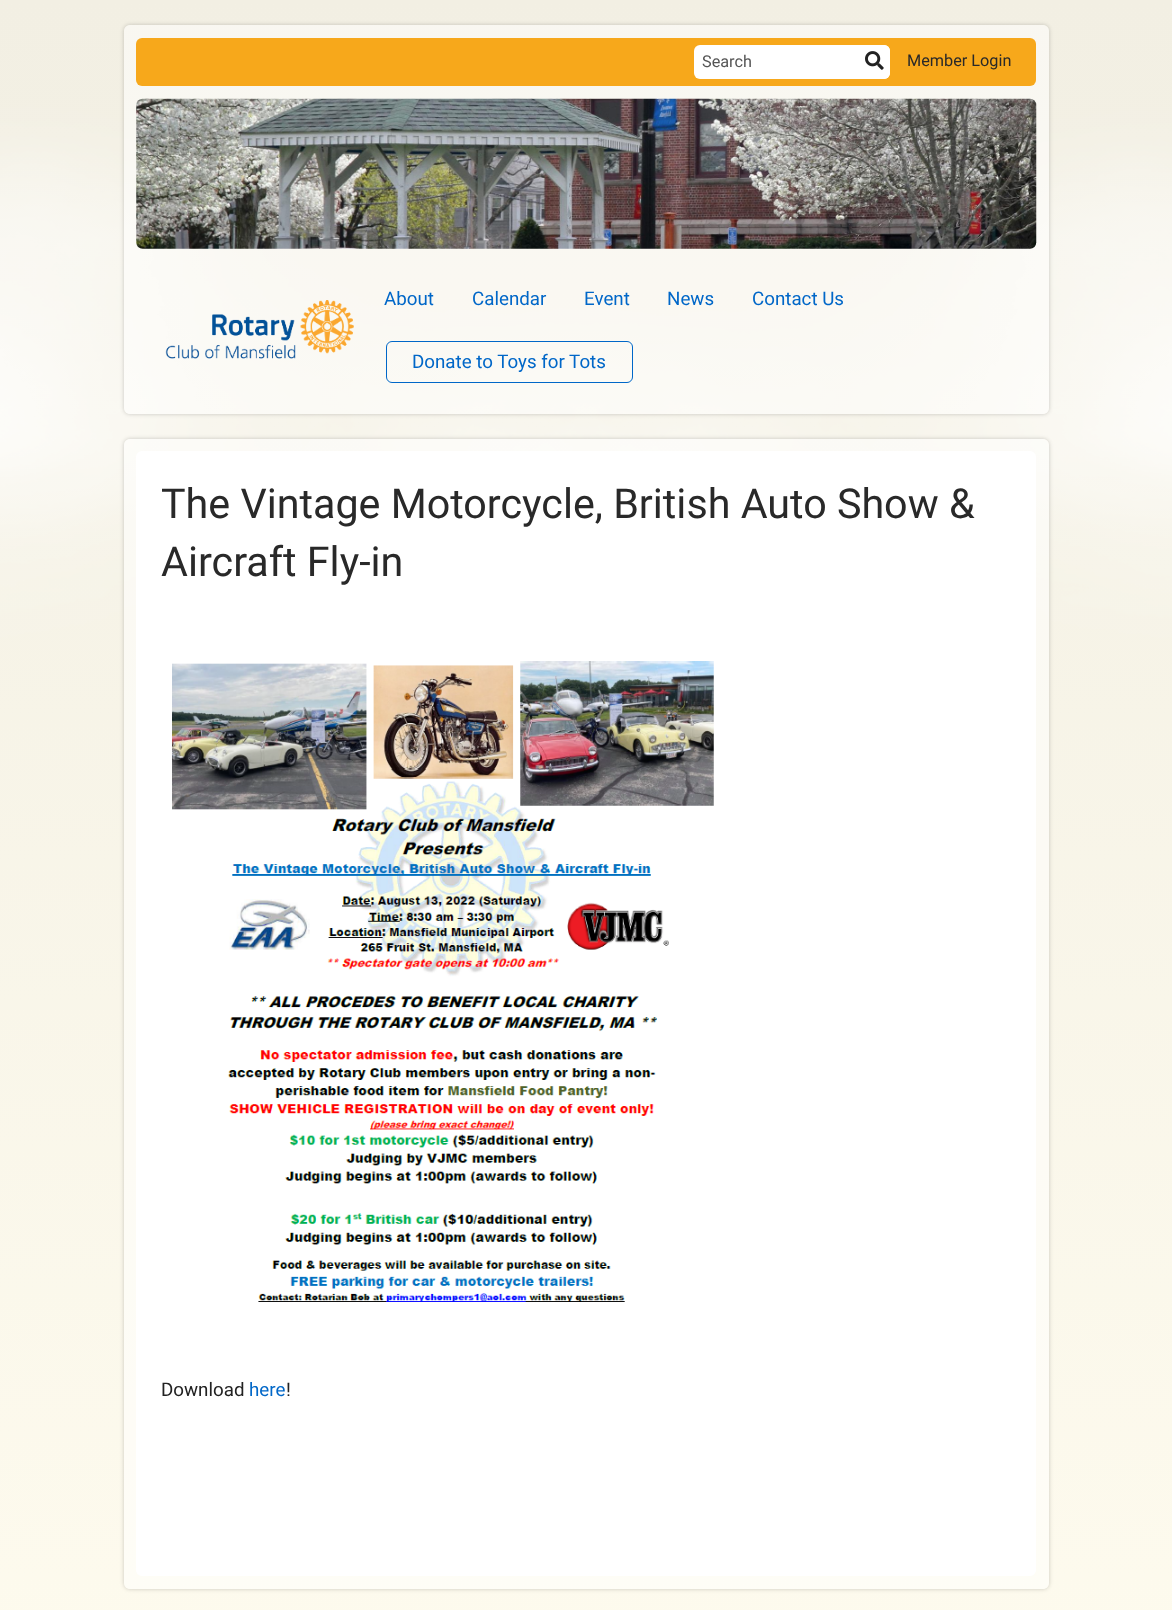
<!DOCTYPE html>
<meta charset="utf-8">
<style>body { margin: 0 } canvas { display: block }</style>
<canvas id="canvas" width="1172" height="1610"></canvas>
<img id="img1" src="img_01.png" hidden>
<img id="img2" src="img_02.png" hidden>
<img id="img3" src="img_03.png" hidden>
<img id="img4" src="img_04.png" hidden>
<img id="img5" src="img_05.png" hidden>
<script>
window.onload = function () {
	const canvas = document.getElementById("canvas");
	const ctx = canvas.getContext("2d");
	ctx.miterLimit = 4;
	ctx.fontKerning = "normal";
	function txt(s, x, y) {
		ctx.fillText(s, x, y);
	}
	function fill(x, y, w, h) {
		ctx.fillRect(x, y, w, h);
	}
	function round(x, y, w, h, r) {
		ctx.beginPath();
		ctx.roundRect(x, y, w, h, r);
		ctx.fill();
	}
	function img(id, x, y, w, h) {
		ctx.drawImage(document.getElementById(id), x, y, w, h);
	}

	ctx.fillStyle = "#FFFFFF";
	fill(0, 0, 1172, 1610);
	img("img1", 0, 0, 1172, 1610);
	ctx.save();
	ctx.beginPath();
	ctx.moveTo(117, 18);
	ctx.lineTo(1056, 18);
	ctx.lineTo(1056, 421);
	ctx.lineTo(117, 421);
	ctx.closePath();
	ctx.moveTo(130, 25);
	ctx.lineTo(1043, 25);
	ctx.bezierCurveTo(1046.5, 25, 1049, 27.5, 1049, 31);
	ctx.lineTo(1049, 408);
	ctx.bezierCurveTo(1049, 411.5, 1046.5, 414, 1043, 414);
	ctx.lineTo(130, 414);
	ctx.bezierCurveTo(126.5, 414, 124, 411.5, 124, 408);
	ctx.lineTo(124, 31);
	ctx.bezierCurveTo(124, 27.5, 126.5, 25, 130, 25);
	ctx.closePath();
	ctx.clip("evenodd");
	ctx.fillStyle = "rgba(0, 0, 0, 0.2)";
	ctx.filter = "blur(2px)";
	ctx.beginPath();
	ctx.roundRect(124, 25, 925, 389, 6);
	ctx.fill();
	ctx.filter = "none";
	ctx.restore();
	ctx.fillStyle = "rgba(255, 255, 255, 0.5)";
	round(124, 25, 925, 389, 6);
	ctx.fillStyle = "#F7A81B";
	round(136, 38, 900, 48, 6);
	ctx.fillStyle = "#FFFFFF";
	round(694, 45, 196, 34, 6);
	round(859, 45, 31, 34, 6);
	img("img2", 865, 51, 19, 19);
	img("img3", 136, 98, 901, 151);
	img("img4", 165, 300, 189, 59);
	ctx.beginPath();
	ctx.roundRect(386.5, 341.5, 246, 41, 5.5);
	ctx.strokeStyle = "#0067C8";
	ctx.stroke();
	ctx.save();
	ctx.beginPath();
	ctx.moveTo(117, 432);
	ctx.lineTo(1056, 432);
	ctx.lineTo(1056, 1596);
	ctx.lineTo(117, 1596);
	ctx.closePath();
	ctx.moveTo(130, 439);
	ctx.lineTo(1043, 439);
	ctx.bezierCurveTo(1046.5, 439, 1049, 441.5, 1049, 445);
	ctx.lineTo(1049, 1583);
	ctx.bezierCurveTo(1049, 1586.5, 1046.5, 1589, 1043, 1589);
	ctx.lineTo(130, 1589);
	ctx.bezierCurveTo(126.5, 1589, 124, 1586.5, 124, 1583);
	ctx.lineTo(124, 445);
	ctx.bezierCurveTo(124, 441.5, 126.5, 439, 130, 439);
	ctx.closePath();
	ctx.clip("evenodd");
	ctx.fillStyle = "rgba(0, 0, 0, 0.2)";
	ctx.filter = "blur(2px)";
	ctx.beginPath();
	ctx.roundRect(124, 439, 925, 1150, 6);
	ctx.fill();
	ctx.filter = "none";
	ctx.restore();
	ctx.fillStyle = "rgba(255, 255, 255, 0.5)";
	round(124, 439, 925, 1150, 6);
	ctx.fillStyle = "#FFFFFF";
	round(136, 451, 900, 1125, 6);
	img("img5", 172, 661, 542, 641);
	ctx.font = "16.25px Roboto";
	ctx.fillStyle = "#555555";
	txt("Search", 702, 67);
	ctx.fillStyle = "#292929";
	txt("Member Login", 907, 66);
	ctx.font = "18.75px Roboto";
	ctx.fillStyle = "#0067C8";
	txt("About", 384, 305);
	txt("Calendar", 472, 305);
	txt("Event", 584, 305);
	txt("News", 667, 305);
	txt("Contact Us", 752, 305);
	txt("Donate to Toys for Tots", 412, 368);
	ctx.font = "41.25px Roboto";
	ctx.fillStyle = "#292929";
	txt("The Vintage Motorcycle, British Auto Show &", 161, 518);
	txt("Aircraft Fly-in", 161, 576);
	ctx.font = "18.75px Roboto";
	ctx.fillStyle = "#222222";
	txt("Download", 161, 1396);
	ctx.fillStyle = "#0067C8";
	txt("here", 249, 1396);
	ctx.fillStyle = "#222222";
	txt("!", 286, 1396);
};
</script>
